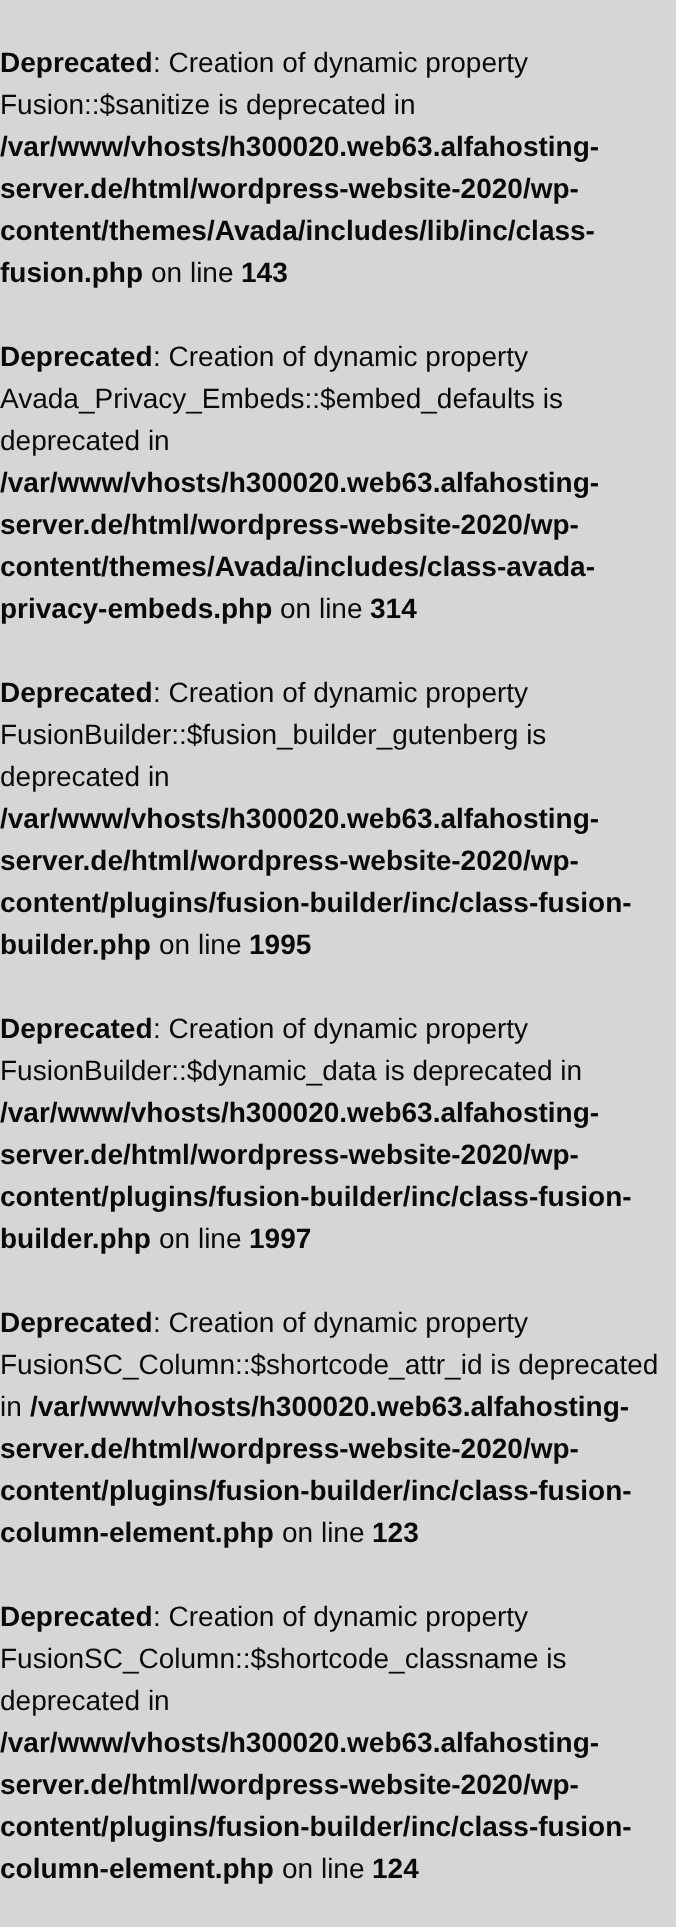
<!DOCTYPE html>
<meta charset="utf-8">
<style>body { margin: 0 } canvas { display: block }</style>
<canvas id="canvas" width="676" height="1927"></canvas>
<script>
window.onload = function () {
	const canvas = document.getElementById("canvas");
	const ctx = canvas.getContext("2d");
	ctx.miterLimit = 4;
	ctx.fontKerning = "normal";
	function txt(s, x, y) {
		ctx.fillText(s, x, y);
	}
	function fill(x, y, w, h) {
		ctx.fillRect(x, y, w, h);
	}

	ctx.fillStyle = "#D7D6D6";
	fill(0, 0, 676, 1927);
	ctx.font = "bold 28px Liberation Sans";
	ctx.fillStyle = "#0A0A0A";
	txt("Deprecated", 0, 72);
	ctx.font = "28px Liberation Sans";
	txt(": Creation of dynamic property", 153, 72);
	txt("Fusion::$sanitize is deprecated in", 0, 114);
	ctx.font = "bold 28px Liberation Sans";
	txt("/var/www/vhosts/h300020.web63.alfahosting-", 0, 156);
	txt("server.de/html/wordpress-website-2020/wp-", 0, 198);
	txt("content/themes/Avada/includes/lib/inc/class-", 0, 240);
	txt("fusion.php", 0, 282);
	ctx.font = "28px Liberation Sans";
	txt("on line", 151, 282);
	ctx.font = "bold 28px Liberation Sans";
	txt("143", 241, 282);
	txt("Deprecated", 0, 366);
	ctx.font = "28px Liberation Sans";
	txt(": Creation of dynamic property", 153, 366);
	txt("Avada_Privacy_Embeds::$embed_defaults is", 0, 408);
	txt("deprecated in", 0, 450);
	ctx.font = "bold 28px Liberation Sans";
	txt("/var/www/vhosts/h300020.web63.alfahosting-", 0, 492);
	txt("server.de/html/wordpress-website-2020/wp-", 0, 534);
	txt("content/themes/Avada/includes/class-avada-", 0, 576);
	txt("privacy-embeds.php", 0, 618);
	ctx.font = "28px Liberation Sans";
	txt("on line", 280, 618);
	ctx.font = "bold 28px Liberation Sans";
	txt("314", 370, 618);
	txt("Deprecated", 0, 702);
	ctx.font = "28px Liberation Sans";
	txt(": Creation of dynamic property", 153, 702);
	txt("FusionBuilder::$fusion_builder_gutenberg is", 0, 744);
	txt("deprecated in", 0, 786);
	ctx.font = "bold 28px Liberation Sans";
	txt("/var/www/vhosts/h300020.web63.alfahosting-", 0, 828);
	txt("server.de/html/wordpress-website-2020/wp-", 0, 870);
	txt("content/plugins/fusion-builder/inc/class-fusion-", 0, 912);
	txt("builder.php", 0, 954);
	ctx.font = "28px Liberation Sans";
	txt("on line", 159, 954);
	ctx.font = "bold 28px Liberation Sans";
	txt("1995", 249, 954);
	txt("Deprecated", 0, 1038);
	ctx.font = "28px Liberation Sans";
	txt(": Creation of dynamic property", 153, 1038);
	txt("FusionBuilder::$dynamic_data is deprecated in", 0, 1080);
	ctx.font = "bold 28px Liberation Sans";
	txt("/var/www/vhosts/h300020.web63.alfahosting-", 0, 1122);
	txt("server.de/html/wordpress-website-2020/wp-", 0, 1164);
	txt("content/plugins/fusion-builder/inc/class-fusion-", 0, 1206);
	txt("builder.php", 0, 1248);
	ctx.font = "28px Liberation Sans";
	txt("on line", 159, 1248);
	ctx.font = "bold 28px Liberation Sans";
	txt("1997", 249, 1248);
	txt("Deprecated", 0, 1332);
	ctx.font = "28px Liberation Sans";
	txt(": Creation of dynamic property", 153, 1332);
	txt("FusionSC_Column::$shortcode_attr_id is deprecated", 0, 1374);
	txt("in", 0, 1416);
	ctx.font = "bold 28px Liberation Sans";
	txt("/var/www/vhosts/h300020.web63.alfahosting-", 30, 1416);
	txt("server.de/html/wordpress-website-2020/wp-", 0, 1458);
	txt("content/plugins/fusion-builder/inc/class-fusion-", 0, 1500);
	txt("column-element.php", 0, 1542);
	ctx.font = "28px Liberation Sans";
	txt("on line", 282, 1542);
	ctx.font = "bold 28px Liberation Sans";
	txt("123", 372, 1542);
	txt("Deprecated", 0, 1626);
	ctx.font = "28px Liberation Sans";
	txt(": Creation of dynamic property", 153, 1626);
	txt("FusionSC_Column::$shortcode_classname is", 0, 1668);
	txt("deprecated in", 0, 1710);
	ctx.font = "bold 28px Liberation Sans";
	txt("/var/www/vhosts/h300020.web63.alfahosting-", 0, 1752);
	txt("server.de/html/wordpress-website-2020/wp-", 0, 1794);
	txt("content/plugins/fusion-builder/inc/class-fusion-", 0, 1836);
	txt("column-element.php", 0, 1878);
	ctx.font = "28px Liberation Sans";
	txt("on line", 282, 1878);
	ctx.font = "bold 28px Liberation Sans";
	txt("124", 372, 1878);
};
</script>
